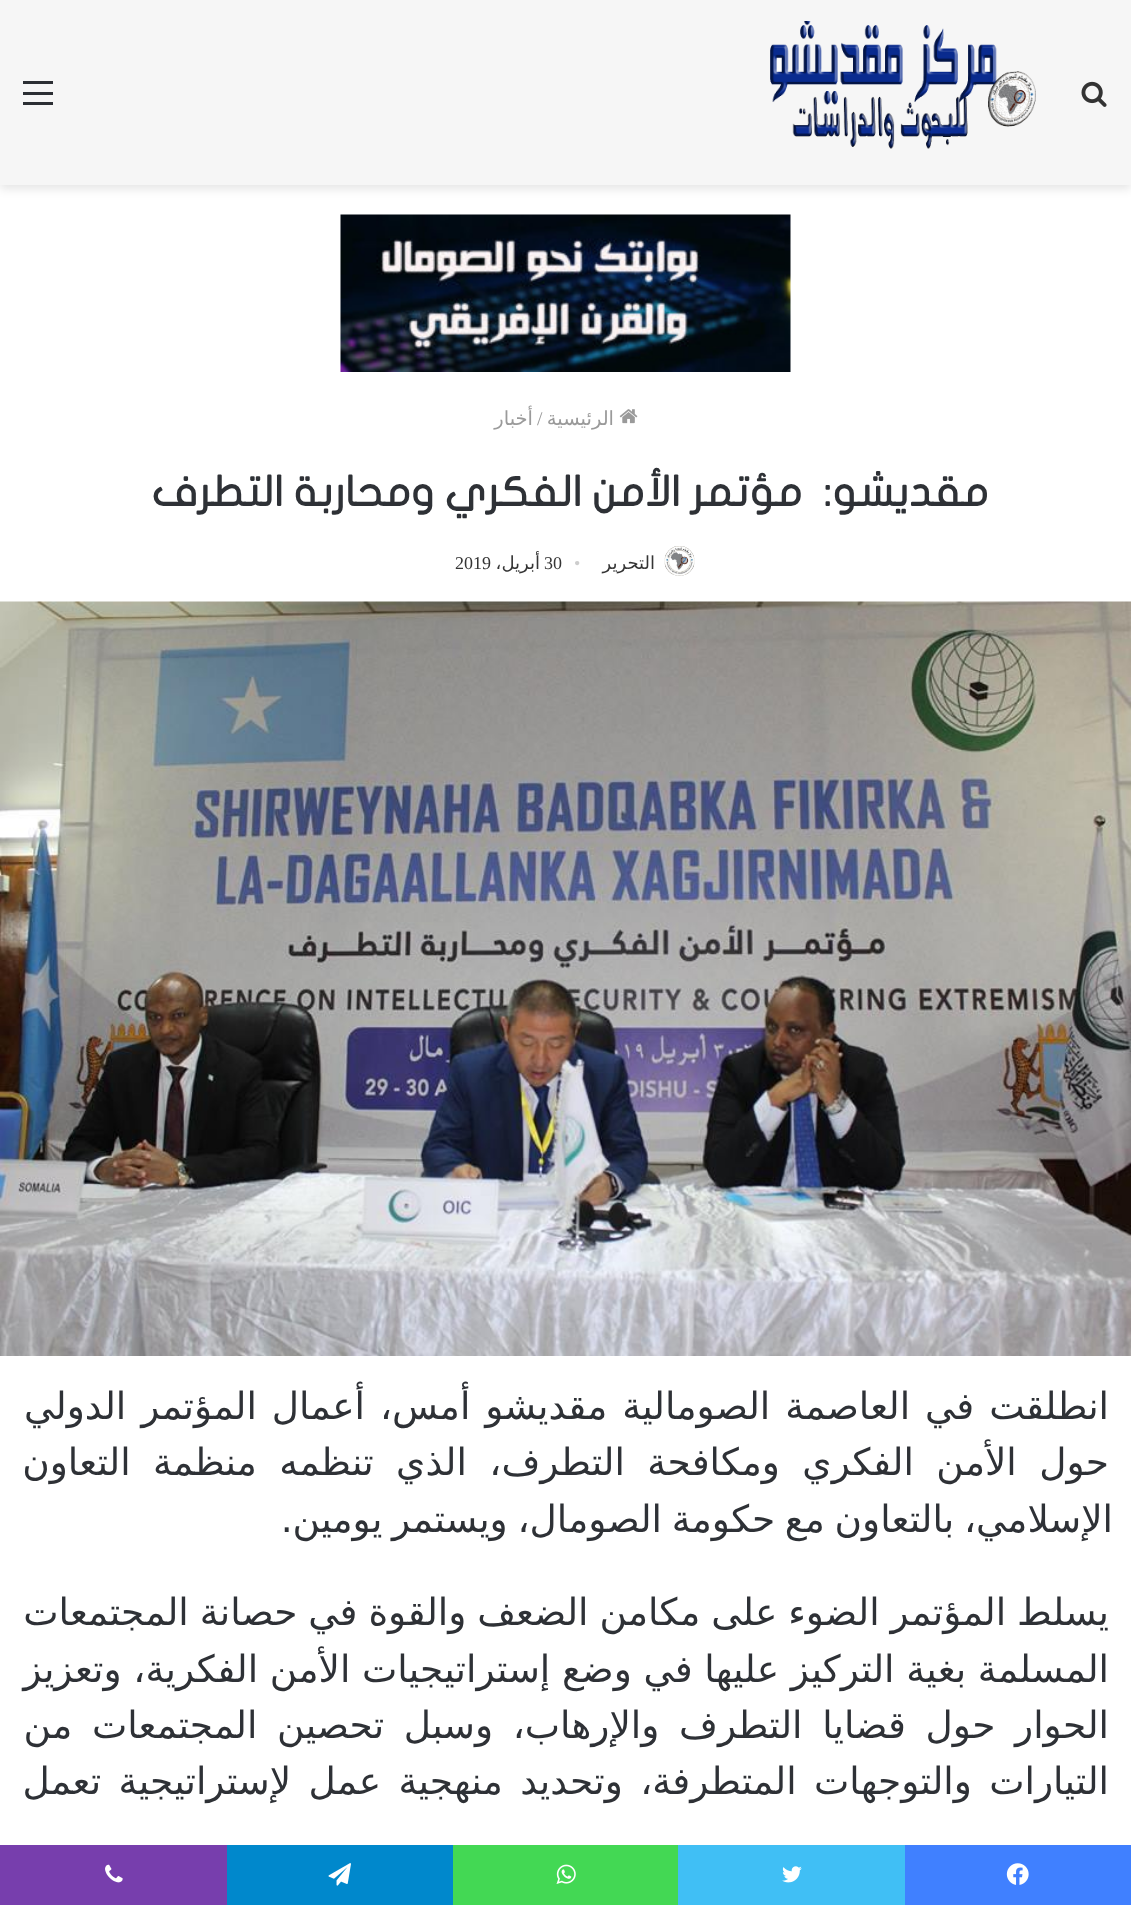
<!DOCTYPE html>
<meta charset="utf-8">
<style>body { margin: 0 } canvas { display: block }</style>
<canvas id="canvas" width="1131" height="1905"></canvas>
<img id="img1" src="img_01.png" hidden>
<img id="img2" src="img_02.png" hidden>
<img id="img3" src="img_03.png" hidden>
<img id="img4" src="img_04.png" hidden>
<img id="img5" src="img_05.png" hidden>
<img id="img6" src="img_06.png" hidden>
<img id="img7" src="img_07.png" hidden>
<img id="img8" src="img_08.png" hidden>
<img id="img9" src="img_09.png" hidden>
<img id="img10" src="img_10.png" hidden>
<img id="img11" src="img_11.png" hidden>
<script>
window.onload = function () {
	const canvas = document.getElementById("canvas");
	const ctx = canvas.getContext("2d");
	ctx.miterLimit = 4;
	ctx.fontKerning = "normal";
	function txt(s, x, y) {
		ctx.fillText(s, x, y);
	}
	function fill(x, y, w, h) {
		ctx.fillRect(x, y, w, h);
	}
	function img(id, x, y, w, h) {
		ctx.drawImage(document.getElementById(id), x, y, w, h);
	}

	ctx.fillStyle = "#FFFFFF";
	fill(0, 0, 1131, 1905);
	ctx.save();
	ctx.beginPath();
	ctx.moveTo(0, 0);
	ctx.lineTo(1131, 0);
	ctx.lineTo(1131, 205);
	ctx.lineTo(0, 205);
	ctx.closePath();
	ctx.moveTo(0, 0);
	ctx.lineTo(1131, 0);
	ctx.lineTo(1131, 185);
	ctx.lineTo(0, 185);
	ctx.closePath();
	ctx.clip("evenodd");
	ctx.fillStyle = "rgba(0, 0, 0, 0.1)";
	ctx.filter = "blur(5px)";
	ctx.beginPath();
	ctx.rect(0, 5, 1131, 184);
	ctx.fill();
	ctx.filter = "none";
	ctx.restore();
	ctx.fillStyle = "rgba(196, 196, 196, 0.15)";
	fill(0, 0, 1131, 185);
	img("img1", 1081, 81, 26, 26);
	img("img2", 770, 21, 266, 128);
	ctx.fillStyle = "#2C2F34";
	fill(23, 92, 30, 3);
	fill(23, 81, 30, 3);
	fill(23, 102, 30, 3);
	img("img3", 340, 214, 451, 158);
	img("img4", 619, 409, 19, 15);
	img("img5", 664, 546, 31, 30);
	img("img6", 0, 601, 1131, 755);
	ctx.fillStyle = "#4080FF";
	fill(905, 1845, 226, 60);
	img("img7", 1006, 1863, 23, 22);
	ctx.fillStyle = "#40BFF5";
	fill(678, 1845, 227, 60);
	img("img8", 782, 1866, 20, 17);
	ctx.fillStyle = "#43D854";
	fill(453, 1845, 225, 60);
	img("img9", 556, 1864, 20, 20);
	ctx.fillStyle = "#0088CC";
	fill(227, 1845, 226, 60);
	img("img10", 328, 1863, 23, 23);
	ctx.fillStyle = "#773EAD";
	fill(0, 1845, 227, 60);
	img("img11", 105, 1864, 18, 19);
	ctx.direction = "rtl";
	ctx.font = "19.5px DejaVu Sans";
	ctx.fillStyle = "#9A9A9A";
	txt("الرئيسية", 614, 425);
	ctx.direction = "ltr";
	ctx.font = "19.5px Liberation Serif";
	txt("/", 537, 425);
	ctx.direction = "rtl";
	ctx.font = "19.5px DejaVu Sans";
	txt("أخبار", 533, 425);
	ctx.font = "bold 42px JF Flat";
	ctx.fillStyle = "#2E3136";
	txt("مقديشو:  مؤتمر الأمن الفكري ومحاربة التطرف", 989, 506);
	ctx.font = "18px DejaVu Sans";
	ctx.fillStyle = "#353535";
	txt("التحرير", 655, 569);
	ctx.direction = "ltr";
	ctx.font = "18px Liberation Serif";
	ctx.fillStyle = "#CDCDCD";
	txt("•", 574, 569);
	ctx.fillStyle = "#353535";
	txt("30", 544, 569);
	ctx.direction = "rtl";
	ctx.font = "18px DejaVu Sans";
	txt("أبريل،", 540, 569);
	ctx.direction = "ltr";
	ctx.font = "18px Liberation Serif";
	txt("2019", 455, 569);
	ctx.wordSpacing = "3px";
	ctx.direction = "rtl";
	ctx.font = "37.5px DejaVu Sans";
	ctx.fillStyle = "#2E3136";
	txt("انطلقت في العاصمة الصومالية مقديشو أمس، أعمال المؤتمر الدولي", 1109, 1419);
	ctx.wordSpacing = "10.5px";
	txt("حول الأمن الفكري ومكافحة التطرف، الذي تنظمه منظمة التعاون", 1109, 1475);
	ctx.wordSpacing = "-2.25px";
	txt("الإسلامي، بالتعاون مع حكومة الصومال، ويستمر يومين.", 1113, 1532);
	ctx.wordSpacing = "-1px";
	txt("يسلط المؤتمر الضوء على مكامن الضعف والقوة في حصانة المجتمعات", 1109, 1625);
	ctx.wordSpacing = "-0.25px";
	txt("المسلمة بغية التركيز عليها في وضع إستراتيجيات الأمن الفكرية، وتعزيز", 1109, 1682);
	ctx.wordSpacing = "7.75px";
	txt("الحوار حول قضايا التطرف والإرهاب، وسبل تحصين المجتمعات من", 1109, 1738);
	ctx.wordSpacing = "5.5px";
	txt("التيارات والتوجهات المتطرفة، وتحديد منهجية عمل لإستراتيجية تعمل", 1109, 1794);
};
</script>
